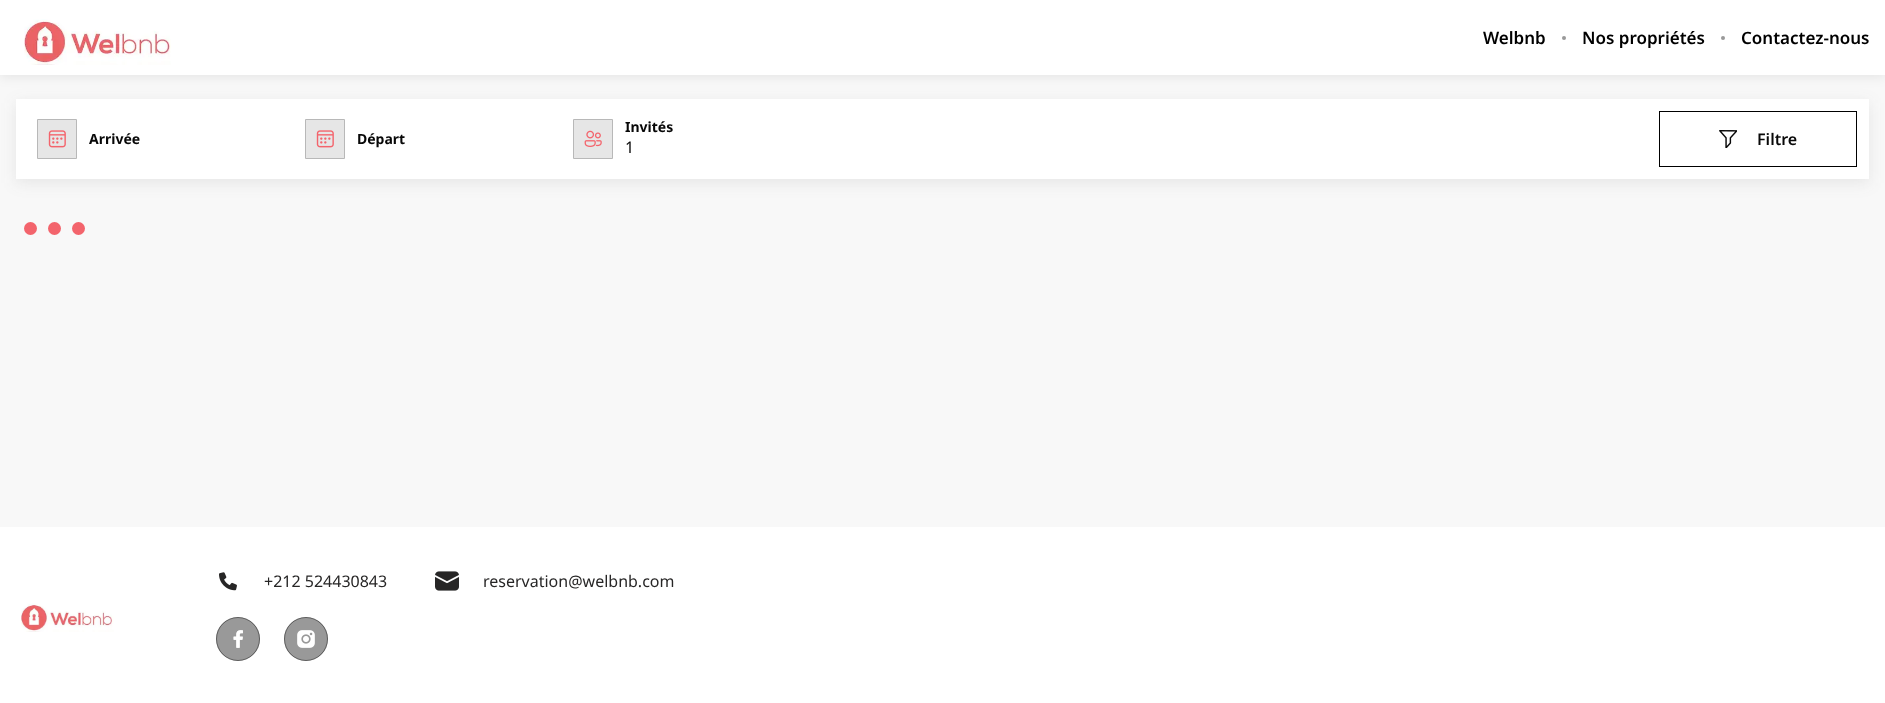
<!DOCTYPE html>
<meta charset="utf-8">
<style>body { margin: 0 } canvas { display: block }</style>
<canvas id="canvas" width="1885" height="703"></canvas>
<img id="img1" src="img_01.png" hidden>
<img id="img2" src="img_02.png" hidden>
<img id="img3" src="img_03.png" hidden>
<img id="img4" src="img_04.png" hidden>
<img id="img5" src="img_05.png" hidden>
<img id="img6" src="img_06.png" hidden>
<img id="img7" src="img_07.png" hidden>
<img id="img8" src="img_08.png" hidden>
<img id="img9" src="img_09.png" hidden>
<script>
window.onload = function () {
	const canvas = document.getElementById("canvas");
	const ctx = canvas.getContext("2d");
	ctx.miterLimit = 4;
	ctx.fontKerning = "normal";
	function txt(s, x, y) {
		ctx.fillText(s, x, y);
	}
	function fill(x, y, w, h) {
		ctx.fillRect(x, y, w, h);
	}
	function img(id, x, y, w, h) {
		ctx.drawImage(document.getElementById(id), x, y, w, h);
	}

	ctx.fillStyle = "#F8F8F8";
	fill(0, 0, 1885, 703);
	ctx.fillStyle = "rgba(0, 0, 0, 0.08)";
	ctx.filter = "blur(6px)";
	ctx.beginPath();
	ctx.rect(0, 2, 1885, 75);
	ctx.fill();
	ctx.filter = "none";
	ctx.fillStyle = "#FFFFFF";
	fill(0, 0, 1885, 75);
	img("img1", 24, 19, 147, 46);
	ctx.fillStyle = "#999999";
	ctx.beginPath();
	ctx.arc(1564, 38, 2, 0, Math.PI * 2);
	ctx.fill();
	ctx.beginPath();
	ctx.arc(1723, 38, 2, 0, Math.PI * 2);
	ctx.fill();
	ctx.fillStyle = "rgba(67, 67, 67, 0.1)";
	ctx.filter = "blur(8px)";
	ctx.beginPath();
	ctx.rect(16, 103, 1853, 80);
	ctx.fill();
	ctx.filter = "none";
	ctx.fillStyle = "#FFFFFF";
	fill(16, 99, 1853, 80);
	ctx.fillStyle = "#E6E6E6";
	ctx.beginPath();
	ctx.rect(37.5, 119.5, 39, 39);
	ctx.fill();
	ctx.strokeStyle = "#B8B8B8";
	ctx.stroke();
	img("img2", 48, 130, 18, 18);
	ctx.beginPath();
	ctx.rect(305.5, 119.5, 39, 39);
	ctx.fill();
	ctx.stroke();
	img("img2", 316, 130, 18, 18);
	ctx.beginPath();
	ctx.rect(573.5, 119.5, 39, 39);
	ctx.fill();
	ctx.stroke();
	img("img3", 584, 130, 18, 17);
	ctx.strokeStyle = "#000000";
	ctx.strokeRect(1659.5, 111.5, 197, 55);
	img("img4", 1719, 130, 18, 18);
	ctx.fillStyle = "#F3646C";
	ctx.beginPath();
	ctx.arc(30.5, 228.5, 6.5, 0, Math.PI * 2);
	ctx.fill();
	ctx.beginPath();
	ctx.arc(54.5, 228.5, 6.5, 0, Math.PI * 2);
	ctx.fill();
	ctx.beginPath();
	ctx.arc(78.5, 228.5, 6.5, 0, Math.PI * 2);
	ctx.fill();
	ctx.fillStyle = "#FFFFFF";
	fill(0, 527, 1885, 176);
	img("img5", 219, 572, 18, 19);
	img("img6", 435, 571, 24, 20);
	ctx.fillStyle = "#999999";
	ctx.beginPath();
	ctx.arc(238, 639, 22, 0, Math.PI * 2);
	ctx.fill();
	ctx.beginPath();
	ctx.arc(238, 639, 21.5, 0, Math.PI * 2);
	ctx.strokeStyle = "rgba(0, 0, 0, 0.4)";
	ctx.stroke();
	img("img7", 233, 630, 10, 18);
	ctx.beginPath();
	ctx.arc(306, 639, 22, 0, Math.PI * 2);
	ctx.fill();
	ctx.beginPath();
	ctx.arc(306, 639, 21.5, 0, Math.PI * 2);
	ctx.stroke();
	img("img8", 297, 630, 18, 18);
	img("img9", 21, 603, 93, 29);
	ctx.font = "600 17px Noto Sans";
	ctx.fillStyle = "#000000";
	txt("Welbnb", 1483, 44);
	txt("Nos propriétés", 1582, 44);
	txt("Contactez-nous", 1741, 44);
	ctx.font = "bold 14px Noto Sans";
	ctx.fillStyle = "#080808";
	txt("Arrivée", 89, 144);
	txt("Départ", 357, 144);
	txt("Invités", 625, 132);
	ctx.font = "16px Noto Sans";
	txt("1", 625, 153);
	ctx.font = "600 16px Noto Sans";
	txt("Filtre", 1757, 145);
	ctx.font = "16px Noto Sans";
	ctx.fillStyle = "#272626";
	txt("+212 524430843", 264, 587);
	txt("reservation@welbnb.com", 483, 587);
};
</script>
